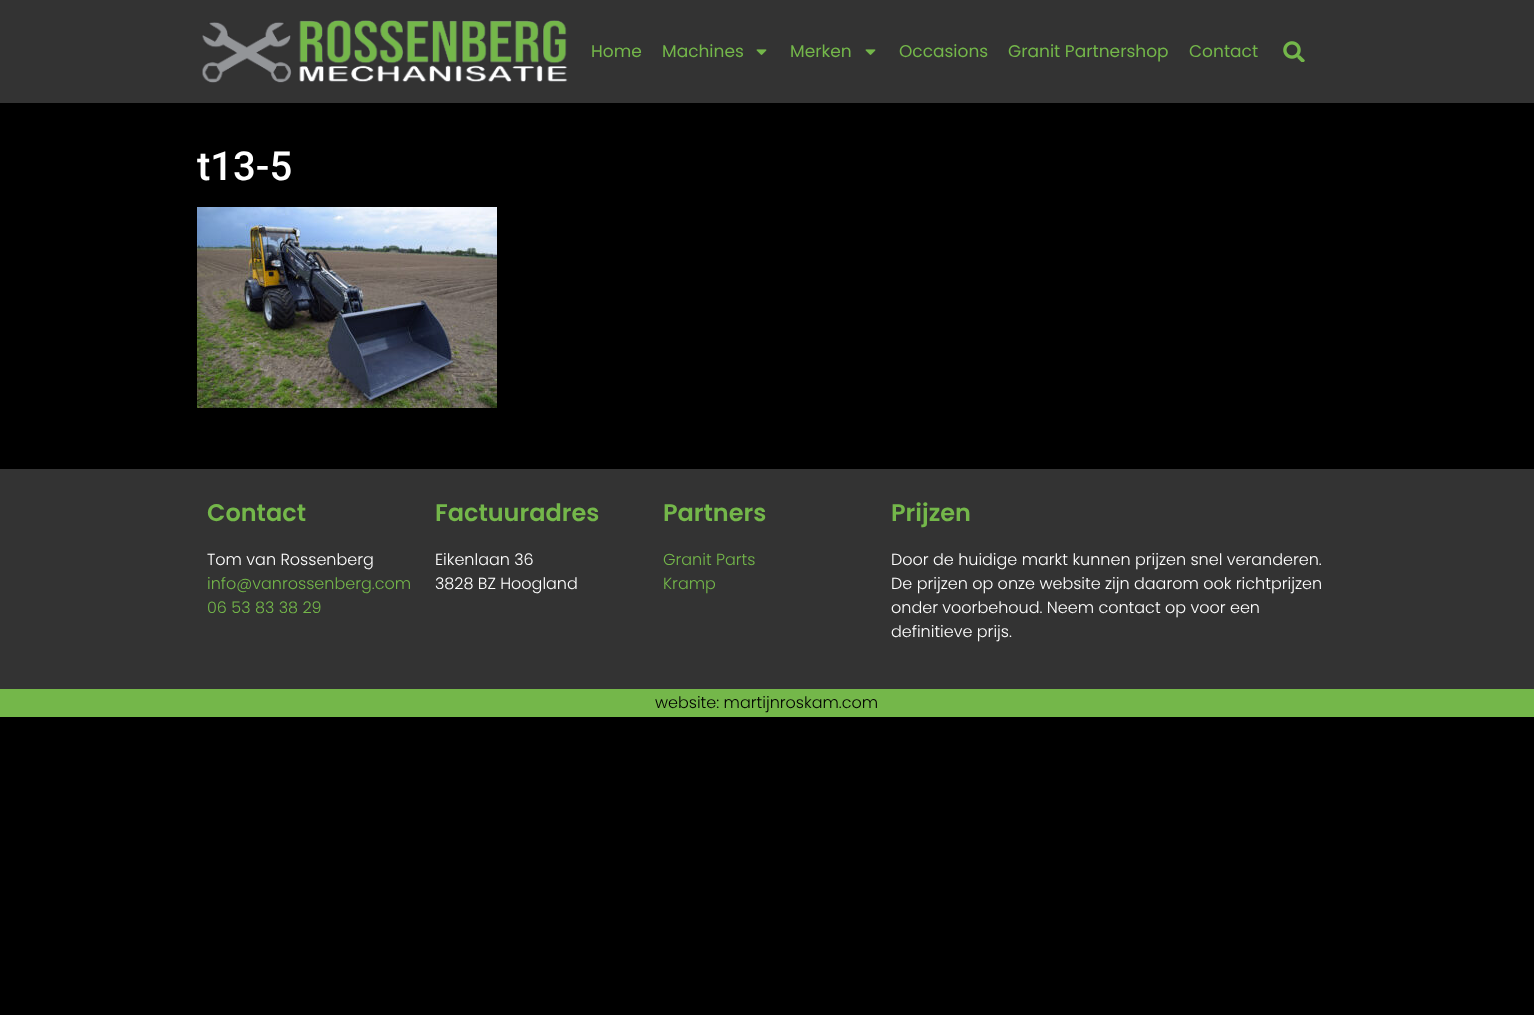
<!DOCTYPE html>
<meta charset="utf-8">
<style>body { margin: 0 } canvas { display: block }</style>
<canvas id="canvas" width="1534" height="1015"></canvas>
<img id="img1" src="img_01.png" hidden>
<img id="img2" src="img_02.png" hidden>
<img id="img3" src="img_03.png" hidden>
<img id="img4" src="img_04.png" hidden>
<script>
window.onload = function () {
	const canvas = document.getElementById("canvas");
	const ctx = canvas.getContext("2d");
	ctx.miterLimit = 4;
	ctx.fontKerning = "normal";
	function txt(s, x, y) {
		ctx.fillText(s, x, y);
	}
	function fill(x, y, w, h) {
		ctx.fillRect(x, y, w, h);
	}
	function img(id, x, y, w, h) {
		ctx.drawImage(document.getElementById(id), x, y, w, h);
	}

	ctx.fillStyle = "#000000";
	fill(0, 0, 1534, 1015);
	ctx.fillStyle = "#333333";
	fill(0, 0, 1534, 103);
	img("img1", 202, 20, 366, 63);
	img("img2", 756, 49, 11, 6);
	img("img2", 865, 49, 11, 6);
	img("img3", 1283, 41, 22, 21);
	img("img4", 197, 207, 300, 201);
	fill(0, 469, 1534, 220);
	ctx.fillStyle = "#74B74A";
	fill(0, 689, 1534, 28);
	ctx.font = "17px Poppins";
	txt("Home", 591, 57);
	txt("Machines", 662, 57);
	txt("Merken", 790, 57);
	txt("Occasions", 899, 57);
	txt("Granit Partnershop", 1008, 57);
	txt("Contact", 1189, 57);
	ctx.font = "500 40px Roboto";
	ctx.fillStyle = "#FFFFFF";
	txt("t13-5", 197, 180);
	ctx.font = "600 24px Poppins";
	ctx.fillStyle = "#74B74A";
	txt("Contact", 207, 521);
	ctx.font = "300 16px Poppins";
	ctx.fillStyle = "#FFFFFF";
	txt("Tom van Rossenberg", 207, 565);
	ctx.fillStyle = "#74B74A";
	txt("info@vanrossenberg.com", 207, 589);
	txt("06 53 83 38 29", 207, 613);
	ctx.font = "600 24px Poppins";
	txt("Factuuradres", 435, 521);
	ctx.font = "300 16px Poppins";
	ctx.fillStyle = "#FFFFFF";
	txt("Eikenlaan 36", 435, 565);
	txt("3828 BZ Hoogland", 435, 589);
	ctx.font = "600 24px Poppins";
	ctx.fillStyle = "#74B74A";
	txt("Partners", 663, 521);
	ctx.font = "300 16px Poppins";
	txt("Granit Parts", 663, 565);
	txt("Kramp", 663, 589);
	ctx.font = "600 24px Poppins";
	txt("Prijzen", 891, 521);
	ctx.font = "300 16px Poppins";
	ctx.fillStyle = "#FFFFFF";
	txt("Door de huidige markt kunnen prijzen snel veranderen.", 891, 565);
	txt("De prijzen op onze website zijn daarom ook richtprijzen", 891, 589);
	txt("onder voorbehoud. Neem contact op voor een", 891, 613);
	txt("definitieve prijs.", 891, 637);
	ctx.fillStyle = "#000000";
	txt("website: martijnroskam.com", 655, 708);
};
</script>
